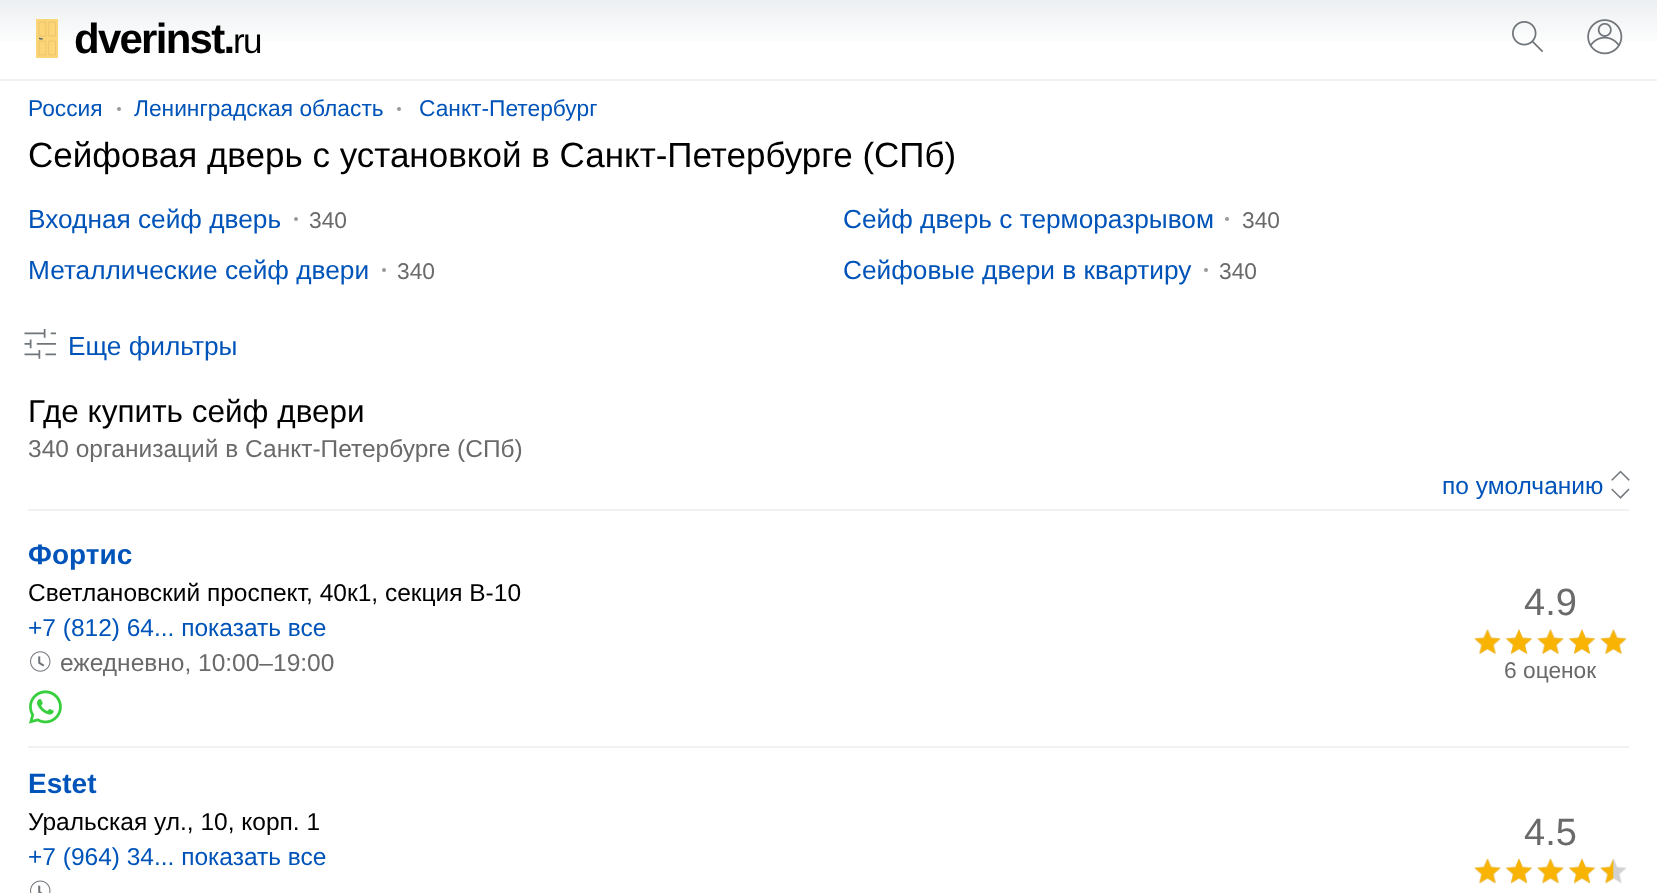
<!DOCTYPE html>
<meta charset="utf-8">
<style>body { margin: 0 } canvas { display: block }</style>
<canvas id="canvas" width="1657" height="893"></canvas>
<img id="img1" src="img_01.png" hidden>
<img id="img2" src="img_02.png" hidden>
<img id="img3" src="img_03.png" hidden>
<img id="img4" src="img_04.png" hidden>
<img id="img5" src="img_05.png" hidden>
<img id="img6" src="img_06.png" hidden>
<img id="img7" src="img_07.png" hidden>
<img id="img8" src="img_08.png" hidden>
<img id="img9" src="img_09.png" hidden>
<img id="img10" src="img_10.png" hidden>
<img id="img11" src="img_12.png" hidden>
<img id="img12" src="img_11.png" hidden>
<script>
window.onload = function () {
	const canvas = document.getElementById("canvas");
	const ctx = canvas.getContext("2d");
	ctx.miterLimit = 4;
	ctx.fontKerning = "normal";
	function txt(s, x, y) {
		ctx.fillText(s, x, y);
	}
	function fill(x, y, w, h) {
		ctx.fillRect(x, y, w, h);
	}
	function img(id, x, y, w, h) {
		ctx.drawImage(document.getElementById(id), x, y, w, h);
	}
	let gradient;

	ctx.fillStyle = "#FFFFFF";
	fill(0, 0, 1657, 893);
	gradient = ctx.createLinearGradient(829, 0, 829, 79);
	gradient.addColorStop(0, "#ECEFF1");
	gradient.addColorStop(0.6, "#FFFFFF");
	ctx.fillStyle = gradient;
	fill(0, 0, 1657, 41);
	ctx.fillStyle = "#F1F1F1";
	fill(0, 79, 1657, 2);
	img("img1", 36, 19, 22, 39);
	img("img2", 1512, 21, 32, 32);
	img("img3", 1587, 19, 36, 36);
	ctx.fillStyle = "#999999";
	ctx.beginPath();
	ctx.arc(119, 109, 2, 0, Math.PI * 2);
	ctx.fill();
	ctx.beginPath();
	ctx.arc(399, 109, 2, 0, Math.PI * 2);
	ctx.fill();
	ctx.beginPath();
	ctx.arc(296, 219, 2, 0, Math.PI * 2);
	ctx.fill();
	ctx.beginPath();
	ctx.arc(1227, 219, 2, 0, Math.PI * 2);
	ctx.fill();
	ctx.beginPath();
	ctx.arc(384, 270, 2, 0, Math.PI * 2);
	ctx.fill();
	ctx.beginPath();
	ctx.arc(1206, 270, 2, 0, Math.PI * 2);
	ctx.fill();
	img("img4", 24, 329, 32, 30);
	ctx.fillStyle = "#F1F1F1";
	fill(28, 509, 1601, 2);
	img("img5", 1611, 470, 19, 29);
	img("img6", 30, 651, 21, 21);
	img("img7", 29, 690, 33, 34);
	img("img8", 1474, 629, 153, 25);
	img("img9", 1474, 629, 152, 26);
	fill(28, 746, 1601, 2);
	img("img10", 30, 880, 21, 13);
	img("img11", 1474, 859, 153, 25);
	img("img12", 1474, 858, 140, 26);
	ctx.letterSpacing = "-1.75px";
	ctx.font = "bold 42px Liberation Sans";
	ctx.fillStyle = "#000000";
	txt("dverinst.", 74, 53);
	ctx.font = "35px Liberation Sans";
	txt("ru", 233, 53);
	ctx.letterSpacing = "0px";
	ctx.font = "22.75px Liberation Sans";
	ctx.fillStyle = "#0054B9";
	txt("Россия", 28, 116);
	txt("Ленинградская область", 134, 116);
	txt("Санкт-Петербург", 419, 116);
	ctx.font = "35px Liberation Sans";
	ctx.fillStyle = "#000000";
	txt("Сейфовая дверь с установкой в Санкт-Петербурге (СПб)", 28, 167);
	ctx.font = "26.25px Liberation Sans";
	ctx.fillStyle = "#0054B9";
	txt("Входная сейф дверь", 28, 228);
	ctx.font = "22.75px Liberation Sans";
	ctx.fillStyle = "#6A6A6A";
	txt("340", 309, 228);
	ctx.font = "26.25px Liberation Sans";
	ctx.fillStyle = "#0054B9";
	txt("Сейф дверь с терморазрывом", 843, 228);
	ctx.font = "22.75px Liberation Sans";
	ctx.fillStyle = "#6A6A6A";
	txt("340", 1242, 228);
	ctx.font = "26.25px Liberation Sans";
	ctx.fillStyle = "#0054B9";
	txt("Металлические сейф двери", 28, 279);
	ctx.font = "22.75px Liberation Sans";
	ctx.fillStyle = "#6A6A6A";
	txt("340", 397, 279);
	ctx.font = "26.25px Liberation Sans";
	ctx.fillStyle = "#0054B9";
	txt("Сейфовые двери в квартиру", 843, 279);
	ctx.font = "22.75px Liberation Sans";
	ctx.fillStyle = "#6A6A6A";
	txt("340", 1219, 279);
	ctx.font = "26.25px Liberation Sans";
	ctx.fillStyle = "#0054B9";
	txt("Еще фильтры", 68, 355);
	ctx.font = "31.5px Liberation Sans";
	ctx.fillStyle = "#000000";
	txt("Где купить сейф двери", 28, 422);
	ctx.font = "24.5px Liberation Sans";
	ctx.fillStyle = "#6A6A6A";
	txt("340 организаций в Санкт-Петербурге (СПб)", 28, 457);
	ctx.fillStyle = "#0054B9";
	txt("по умолчанию", 1442, 494);
	ctx.font = "bold 28px Liberation Sans";
	txt("Фортис", 28, 564);
	ctx.font = "24.5px Liberation Sans";
	ctx.fillStyle = "#000000";
	txt("Светлановский проспект, 40к1, секция В-10", 28, 601);
	ctx.fillStyle = "#0054B9";
	txt("+7 (812) 64... показать все", 28, 636);
	ctx.fillStyle = "#6A6A6A";
	txt("ежедневно, 10:00–19:00", 60, 671);
	ctx.font = "38px Liberation Sans";
	txt("4.9", 1524, 615);
	ctx.font = "22.75px Liberation Sans";
	txt("6 оценок", 1504, 678);
	ctx.font = "bold 28px Liberation Sans";
	ctx.fillStyle = "#0054B9";
	txt("Estet", 28, 793);
	ctx.font = "24.5px Liberation Sans";
	ctx.fillStyle = "#000000";
	txt("Уральская ул., 10, корп. 1", 28, 830);
	ctx.fillStyle = "#0054B9";
	txt("+7 (964) 34... показать все", 28, 865);
	ctx.font = "38px Liberation Sans";
	ctx.fillStyle = "#6A6A6A";
	txt("4.5", 1524, 845);
};
</script>
